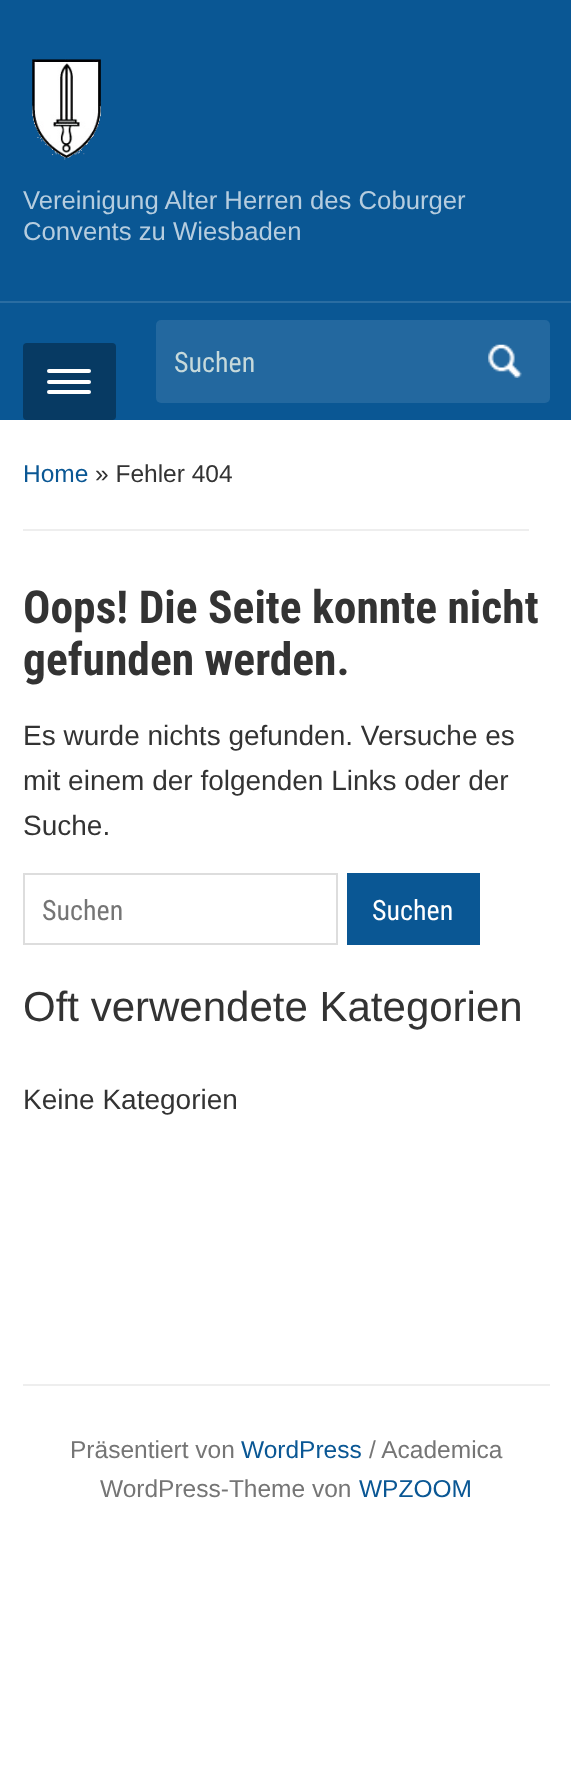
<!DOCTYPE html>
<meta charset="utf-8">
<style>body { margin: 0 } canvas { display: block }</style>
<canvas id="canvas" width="571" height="1790"></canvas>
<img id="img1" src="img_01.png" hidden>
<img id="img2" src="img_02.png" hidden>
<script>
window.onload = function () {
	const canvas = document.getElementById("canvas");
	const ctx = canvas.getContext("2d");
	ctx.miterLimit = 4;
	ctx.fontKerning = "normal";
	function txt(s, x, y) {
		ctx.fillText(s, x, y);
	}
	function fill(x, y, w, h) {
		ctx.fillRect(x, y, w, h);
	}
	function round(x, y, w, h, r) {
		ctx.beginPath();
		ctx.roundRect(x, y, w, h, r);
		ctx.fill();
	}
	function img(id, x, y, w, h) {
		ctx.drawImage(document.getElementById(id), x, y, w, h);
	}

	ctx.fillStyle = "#FFFFFF";
	fill(0, 0, 571, 1790);
	ctx.fillStyle = "#0A5794";
	fill(0, 0, 571, 420);
	img("img1", 32, 59, 69, 101);
	ctx.fillStyle = "#2A6DA2";
	fill(0, 301, 571, 2);
	ctx.fillStyle = "#073A63";
	round(23, 343, 93, 77, 4);
	ctx.fillStyle = "#FFFFFF";
	round(47, 369, 44, 4, 2);
	round(47, 380, 44, 4, 2);
	round(47, 390, 44, 4, 2);
	ctx.fillStyle = "#23689F";
	round(156, 320, 394, 83, 5);
	img("img2", 488, 344, 34, 34);
	ctx.fillStyle = "#EEEEEE";
	fill(23, 529, 506, 2);
	ctx.strokeStyle = "#DDDDDD";
	ctx.lineWidth = 2;
	ctx.strokeRect(24, 874, 313, 70);
	ctx.fillStyle = "#0A5794";
	fill(347, 873, 133, 72);
	ctx.fillStyle = "#EEEEEE";
	fill(23, 1384, 527, 2);
	ctx.font = "25.7px Liberation Sans";
	ctx.fillStyle = "#B6CDDF";
	txt("Vereinigung Alter Herren des Coburger", 23, 209);
	txt("Convents zu Wiesbaden", 23, 240);
	ctx.font = "28px Roboto Condensed";
	ctx.fillStyle = "#C6D9DB";
	txt("Suchen", 174, 372);
	ctx.font = "24.5px Liberation Sans";
	ctx.fillStyle = "#0A5794";
	txt("Home", 23, 482);
	ctx.fillStyle = "#333333";
	txt("» Fehler 404", 95, 482);
	ctx.font = "bold 45.5px Roboto Condensed";
	txt("Oops! Die Seite konnte nicht", 23, 623);
	txt("gefunden werden.", 23, 675);
	ctx.font = "28px Liberation Sans";
	txt("Es wurde nichts gefunden. Versuche es", 23, 745);
	txt("mit einem der folgenden Links oder der", 23, 790);
	txt("Suche.", 23, 835);
	ctx.font = "28px Roboto Condensed";
	ctx.fillStyle = "#757575";
	txt("Suchen", 42, 920);
	ctx.fillStyle = "#FFFFFF";
	txt("Suchen", 372, 920);
	ctx.font = "42px Liberation Sans";
	ctx.fillStyle = "#333333";
	txt("Oft verwendete Kategorien", 23, 1021);
	ctx.font = "28px Liberation Sans";
	txt("Keine Kategorien", 23, 1109);
	ctx.font = "24.5px Liberation Sans";
	ctx.fillStyle = "#757575";
	txt("Präsentiert von", 70, 1458);
	ctx.fillStyle = "#0A5794";
	txt("WordPress", 241, 1458);
	ctx.fillStyle = "#757575";
	txt("/ Academica", 369, 1458);
	txt("WordPress-Theme von", 100, 1497);
	ctx.fillStyle = "#0A5794";
	txt("WPZOOM", 359, 1497);
};
</script>
